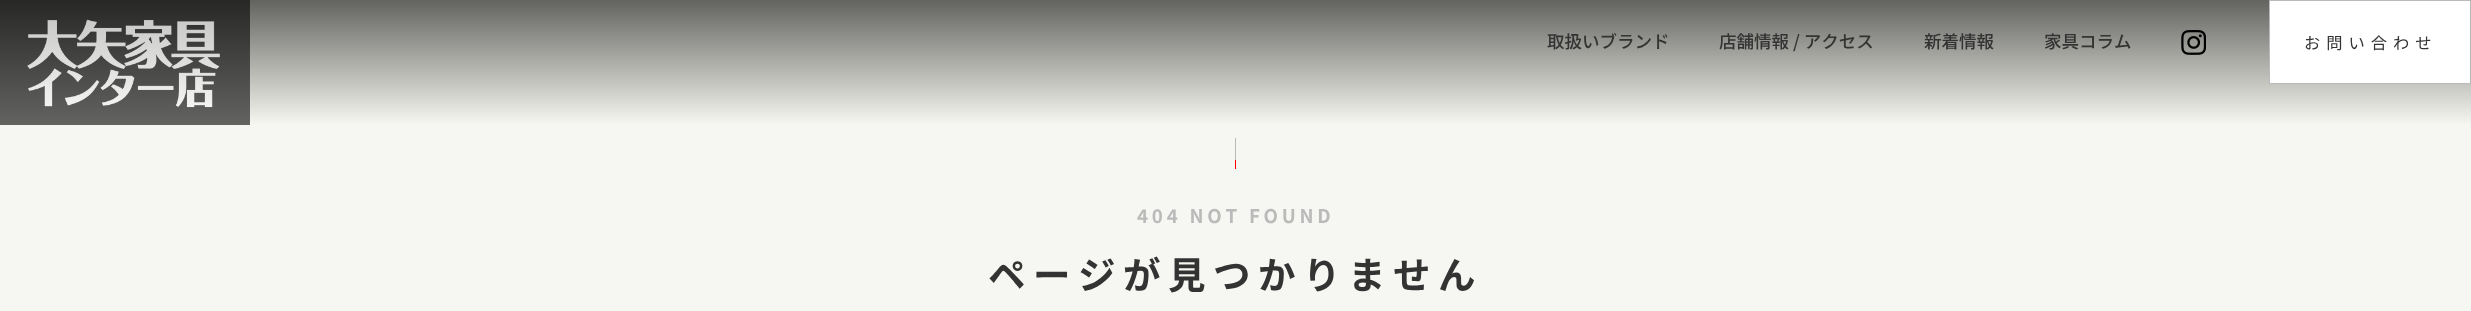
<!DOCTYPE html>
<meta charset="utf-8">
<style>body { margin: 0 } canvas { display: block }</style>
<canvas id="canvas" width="2471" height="311"></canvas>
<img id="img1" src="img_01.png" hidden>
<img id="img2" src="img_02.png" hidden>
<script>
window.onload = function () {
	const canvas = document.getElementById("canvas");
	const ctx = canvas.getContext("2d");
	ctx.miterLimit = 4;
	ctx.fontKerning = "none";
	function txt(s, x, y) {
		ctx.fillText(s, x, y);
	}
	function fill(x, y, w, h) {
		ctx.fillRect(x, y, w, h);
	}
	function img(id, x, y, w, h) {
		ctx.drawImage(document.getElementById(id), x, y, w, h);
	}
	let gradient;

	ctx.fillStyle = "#F6F6F2";
	fill(0, 0, 2471, 311);
	gradient = ctx.createLinearGradient(1236, 125, 1236, 0);
	gradient.addColorStop(0, "#F7F7F1");
	gradient.addColorStop(1, "#636360");
	ctx.fillStyle = gradient;
	fill(0, 0, 2471, 124);
	img("img1", 0, 0, 250, 125);
	img("img2", 2181, 30, 25, 25);
	ctx.fillStyle = "#FFFFFF";
	ctx.beginPath();
	ctx.rect(2269.5, 0.5, 201, 83);
	ctx.fill();
	ctx.strokeStyle = "#BABABA";
	ctx.stroke();
	ctx.fillStyle = "#BABABA";
	fill(1235, 138, 1, 22);
	ctx.fillStyle = "#FF0000";
	fill(1235, 160, 1, 9);
	ctx.font = "500 17.5px Noto Sans JP";
	ctx.fillStyle = "#333333";
	txt("取扱いブランド", 1547, 48);
	txt("店舗情報 / アクセス", 1719, 48);
	txt("新着情報", 1924, 48);
	txt("家具コラム", 2044, 48);
	ctx.letterSpacing = "6px";
	ctx.font = "16.25px Noto Sans JP";
	txt("お問い合わせ", 2304, 49);
	ctx.letterSpacing = "3.75px";
	ctx.font = "bold 18.75px Noto Sans JP";
	ctx.fillStyle = "#BABABA";
	txt("404 NOT FOUND", 1137, 223);
	ctx.letterSpacing = "7.5px";
	ctx.font = "bold 37.5px Noto Sans JP";
	ctx.fillStyle = "#333333";
	txt("ページが見つかりません", 988, 289);
};
</script>
